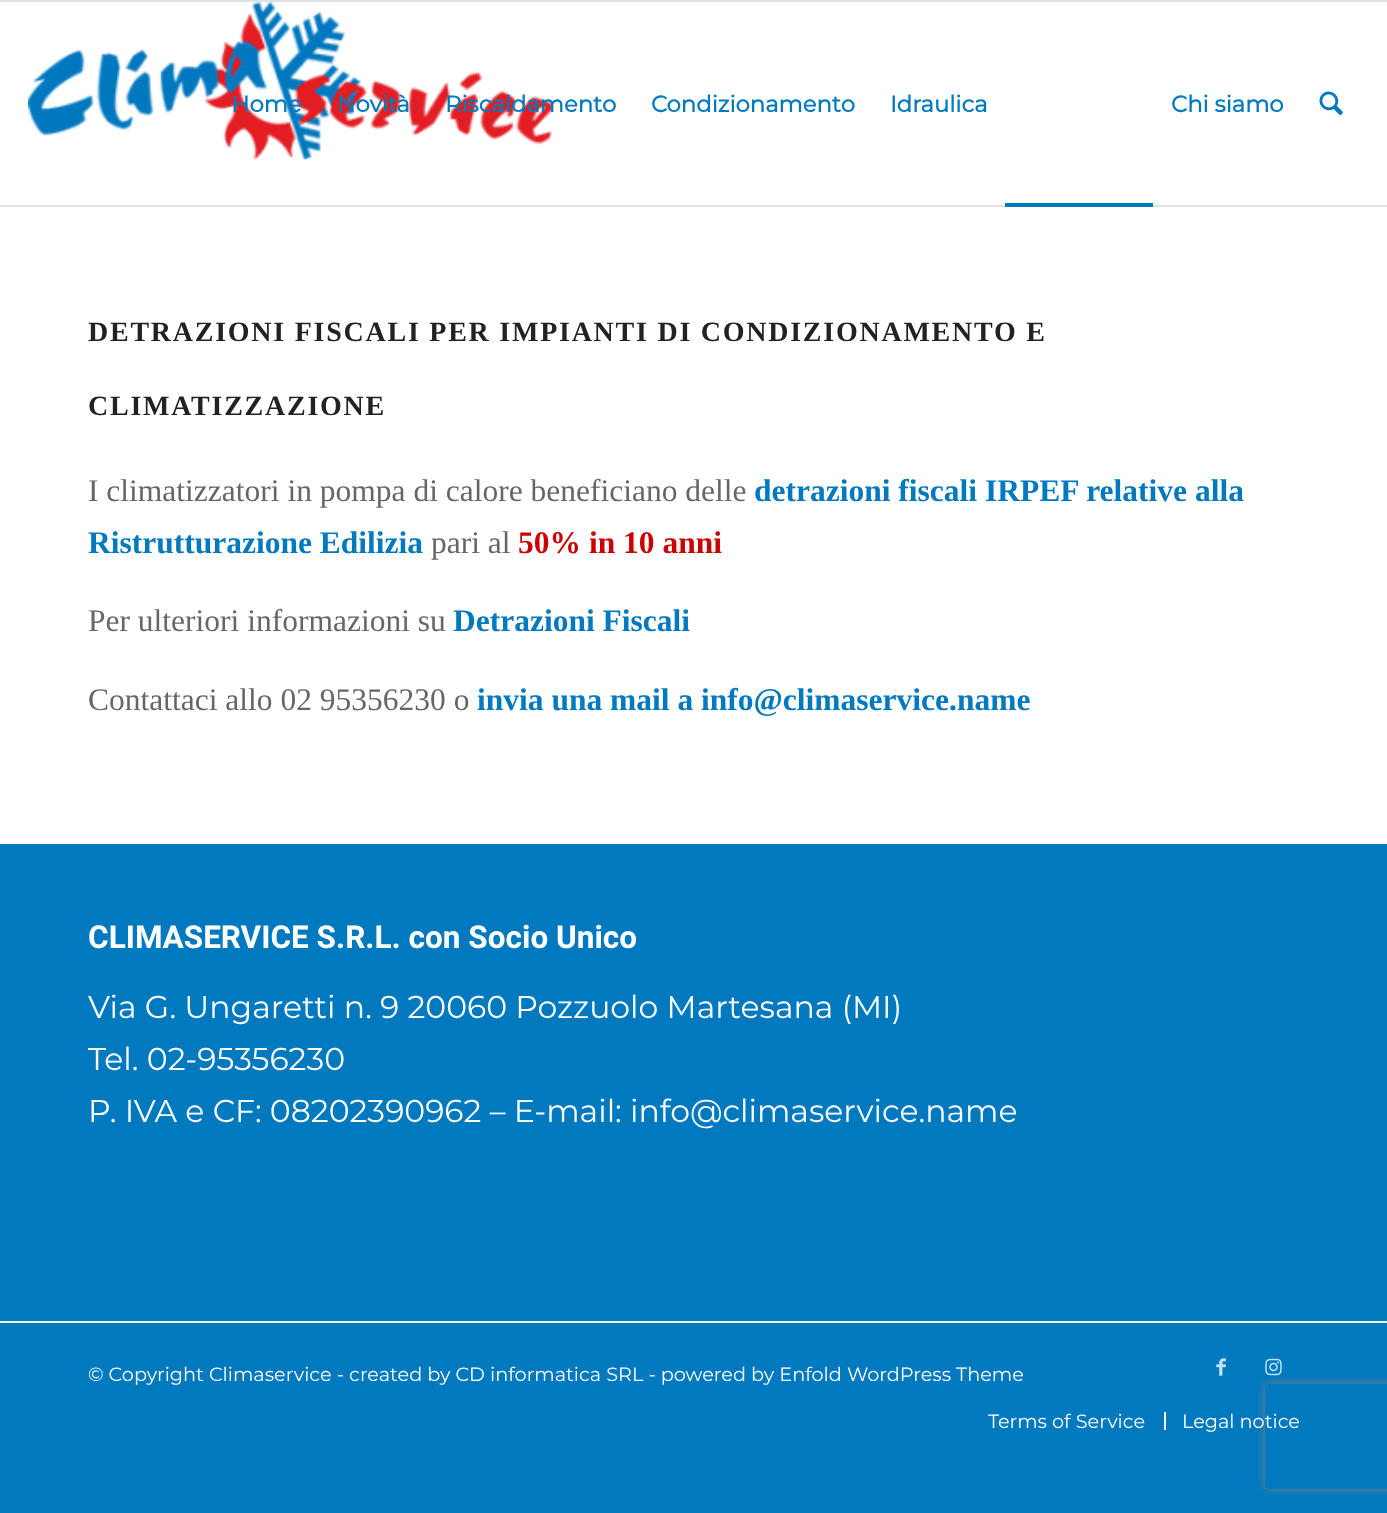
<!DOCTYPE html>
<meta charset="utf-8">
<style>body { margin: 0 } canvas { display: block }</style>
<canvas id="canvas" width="1387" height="1513"></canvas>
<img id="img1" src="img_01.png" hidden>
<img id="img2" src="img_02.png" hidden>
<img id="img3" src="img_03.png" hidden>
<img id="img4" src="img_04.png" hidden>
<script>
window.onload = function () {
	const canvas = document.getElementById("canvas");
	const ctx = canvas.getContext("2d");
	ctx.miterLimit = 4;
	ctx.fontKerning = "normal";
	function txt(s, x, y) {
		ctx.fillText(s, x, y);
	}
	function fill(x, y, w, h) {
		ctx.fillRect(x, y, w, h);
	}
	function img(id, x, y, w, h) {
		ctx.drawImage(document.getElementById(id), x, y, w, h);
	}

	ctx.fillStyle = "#0079BF";
	fill(0, 0, 1387, 1513);
	ctx.fillStyle = "#E1E1E1";
	fill(0, 0, 1387, 2);
	ctx.fillStyle = "#FFFFFF";
	fill(0, 2, 1387, 842);
	ctx.fillStyle = "#E1E1E1";
	fill(0, 205, 1387, 2);
	img("img1", 28, 1, 525, 159);
	img("img2", 1319, 91, 24, 25);
	ctx.fillStyle = "#0079BF";
	fill(1005, 203, 148, 4);
	ctx.fillStyle = "#FFFFFF";
	fill(0, 1321, 1387, 2);
	img("img3", 1216, 1358, 10, 18);
	img("img4", 1265, 1358, 17, 18);
	fill(1164, 1412, 2, 18);
	ctx.save();
	ctx.beginPath();
	ctx.moveTo(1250, 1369);
	ctx.lineTo(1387, 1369);
	ctx.lineTo(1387, 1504);
	ctx.lineTo(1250, 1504);
	ctx.closePath();
	ctx.moveTo(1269, 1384);
	ctx.lineTo(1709, 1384);
	ctx.bezierCurveTo(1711, 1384, 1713, 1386, 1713, 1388);
	ctx.lineTo(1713, 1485);
	ctx.bezierCurveTo(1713, 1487, 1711, 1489, 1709, 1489);
	ctx.lineTo(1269, 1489);
	ctx.bezierCurveTo(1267, 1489, 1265, 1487, 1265, 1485);
	ctx.lineTo(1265, 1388);
	ctx.bezierCurveTo(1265, 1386, 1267, 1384, 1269, 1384);
	ctx.closePath();
	ctx.clip("evenodd");
	ctx.fillStyle = "#808080";
	ctx.filter = "blur(4.5px)";
	ctx.beginPath();
	ctx.roundRect(1265, 1384, 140, 105, 4);
	ctx.fill();
	ctx.filter = "none";
	ctx.restore();
	ctx.font = "bold 22.75px Montserrat";
	ctx.fillStyle = "#0079BF";
	txt("Home", 231, 112);
	txt("Novità", 337, 112);
	txt("Riscaldamento", 445, 112);
	txt("Condizionamento", 651, 112);
	txt("Idraulica", 890, 112);
	txt("Chi siamo", 1171, 112);
	ctx.letterSpacing = "1.75px";
	ctx.font = "bold 28px Liberation Serif";
	ctx.fillStyle = "#222222";
	txt("DETRAZIONI FISCALI PER IMPIANTI DI CONDIZIONAMENTO E", 88, 341);
	txt("CLIMATIZZAZIONE", 88, 415);
	ctx.letterSpacing = "0px";
	ctx.font = "31.5px Liberation Serif";
	ctx.fillStyle = "#666666";
	txt("I climatizzatori in pompa di calore beneficiano delle", 88, 501);
	ctx.font = "bold 31.5px Liberation Serif";
	ctx.fillStyle = "#0079BF";
	txt("detrazioni fiscali IRPEF relative alla", 754, 501);
	txt("Ristrutturazione Edilizia", 88, 553);
	ctx.font = "31.5px Liberation Serif";
	ctx.fillStyle = "#666666";
	txt("pari al", 431, 553);
	ctx.font = "bold 31.5px Liberation Serif";
	ctx.fillStyle = "#CC0000";
	txt("50% in 10 anni", 518, 553);
	ctx.font = "31.5px Liberation Serif";
	ctx.fillStyle = "#666666";
	txt("Per ulteriori informazioni su", 88, 631);
	ctx.font = "bold 31.5px Liberation Serif";
	ctx.fillStyle = "#0079BF";
	txt("Detrazioni Fiscali", 453, 631);
	ctx.font = "31.5px Liberation Serif";
	ctx.fillStyle = "#666666";
	txt("Contattaci allo 02 95356230 o", 88, 710);
	ctx.font = "bold 31.5px Liberation Serif";
	ctx.fillStyle = "#0079BF";
	txt("invia una mail a info@climaservice.name", 477, 710);
	ctx.font = "bold 31.5px Heebo";
	ctx.fillStyle = "#FFFFFF";
	txt("CLIMASERVICE S.R.L. con Socio Unico", 88, 948);
	ctx.font = "100 31.5px Montserrat";
	txt("Via G. Ungaretti n. 9 20060 Pozzuolo Martesana (MI)", 88, 1018);
	txt("Tel. 02-95356230", 88, 1070);
	txt("P. IVA e CF: 08202390962 – E-mail: info@climaservice.name", 88, 1122);
	ctx.font = "100 19.25px Montserrat";
	txt("© Copyright Climaservice - created by CD informatica SRL - powered by Enfold WordPress Theme", 88, 1381);
	txt("Terms of Service", 988, 1428);
	txt("Legal notice", 1182, 1428);
};
</script>
